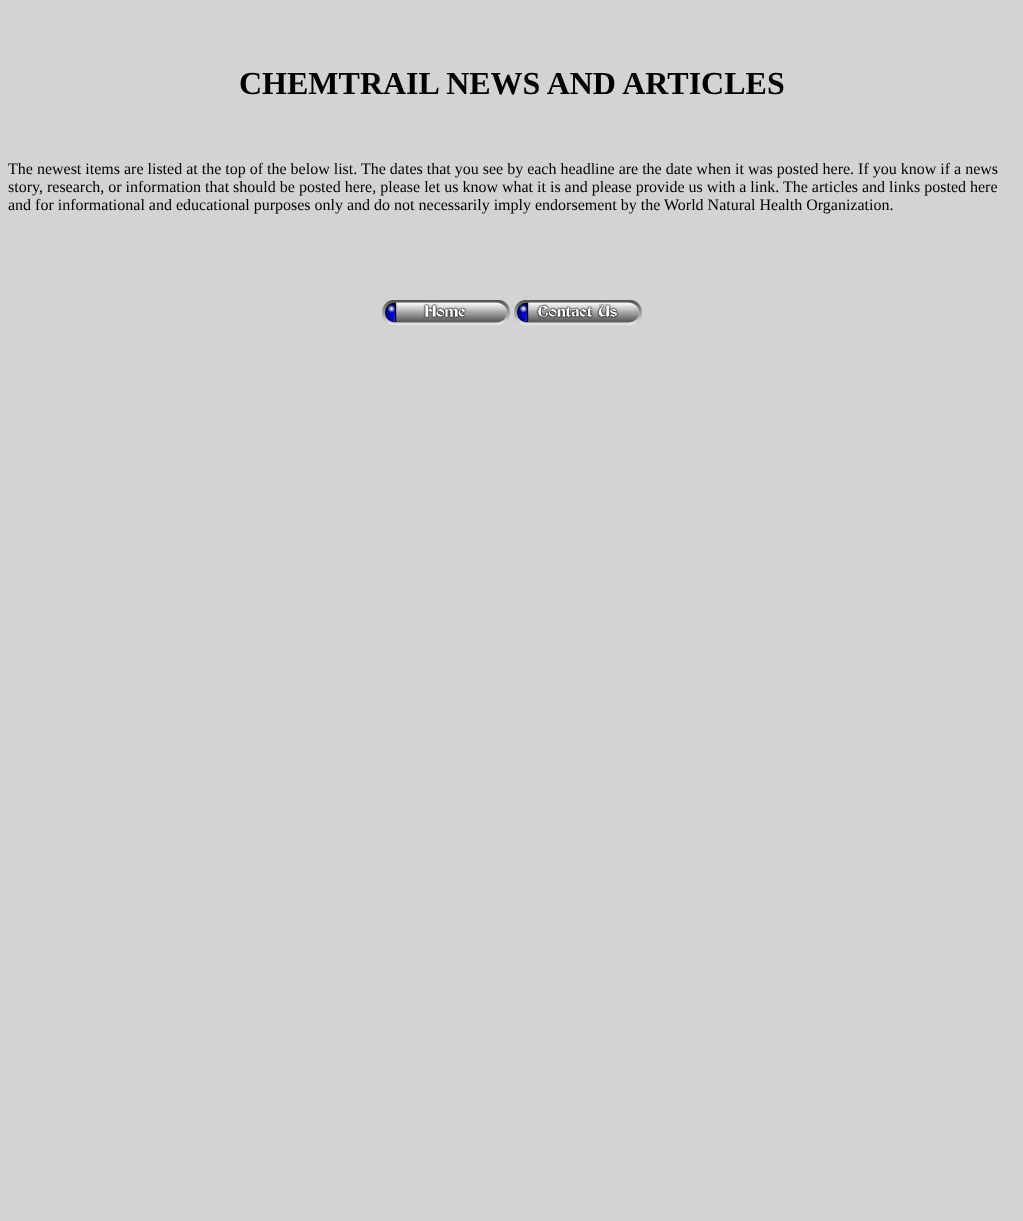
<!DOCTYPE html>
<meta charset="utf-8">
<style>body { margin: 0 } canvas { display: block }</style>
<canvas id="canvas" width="1023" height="1221"></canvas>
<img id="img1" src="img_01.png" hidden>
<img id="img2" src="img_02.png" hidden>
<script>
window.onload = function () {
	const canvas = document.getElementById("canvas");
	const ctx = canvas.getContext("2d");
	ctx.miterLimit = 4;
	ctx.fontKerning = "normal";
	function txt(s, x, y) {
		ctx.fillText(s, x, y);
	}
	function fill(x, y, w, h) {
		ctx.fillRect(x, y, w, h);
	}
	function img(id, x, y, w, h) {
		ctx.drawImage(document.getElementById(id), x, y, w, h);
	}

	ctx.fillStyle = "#D3D3D3";
	fill(0, 0, 1023, 1221);
	img("img1", 382, 300, 128, 25);
	img("img2", 514, 300, 128, 25);
	ctx.font = "bold 32px Liberation Serif";
	ctx.fillStyle = "#000000";
	txt("CHEMTRAIL NEWS AND ARTICLES", 239, 94);
	ctx.font = "16px Liberation Serif";
	txt("The newest items are listed at the top of the below list. The dates that you see by each headline are the date when it was posted here. If you know if a news", 8, 174);
	txt("story, research, or information that should be posted here, please let us know what it is and please provide us with a link. The articles and links posted here", 8, 192);
	txt("and for informational and educational purposes only and do not necessarily imply endorsement by the World Natural Health Organization.", 8, 210);
};
</script>
